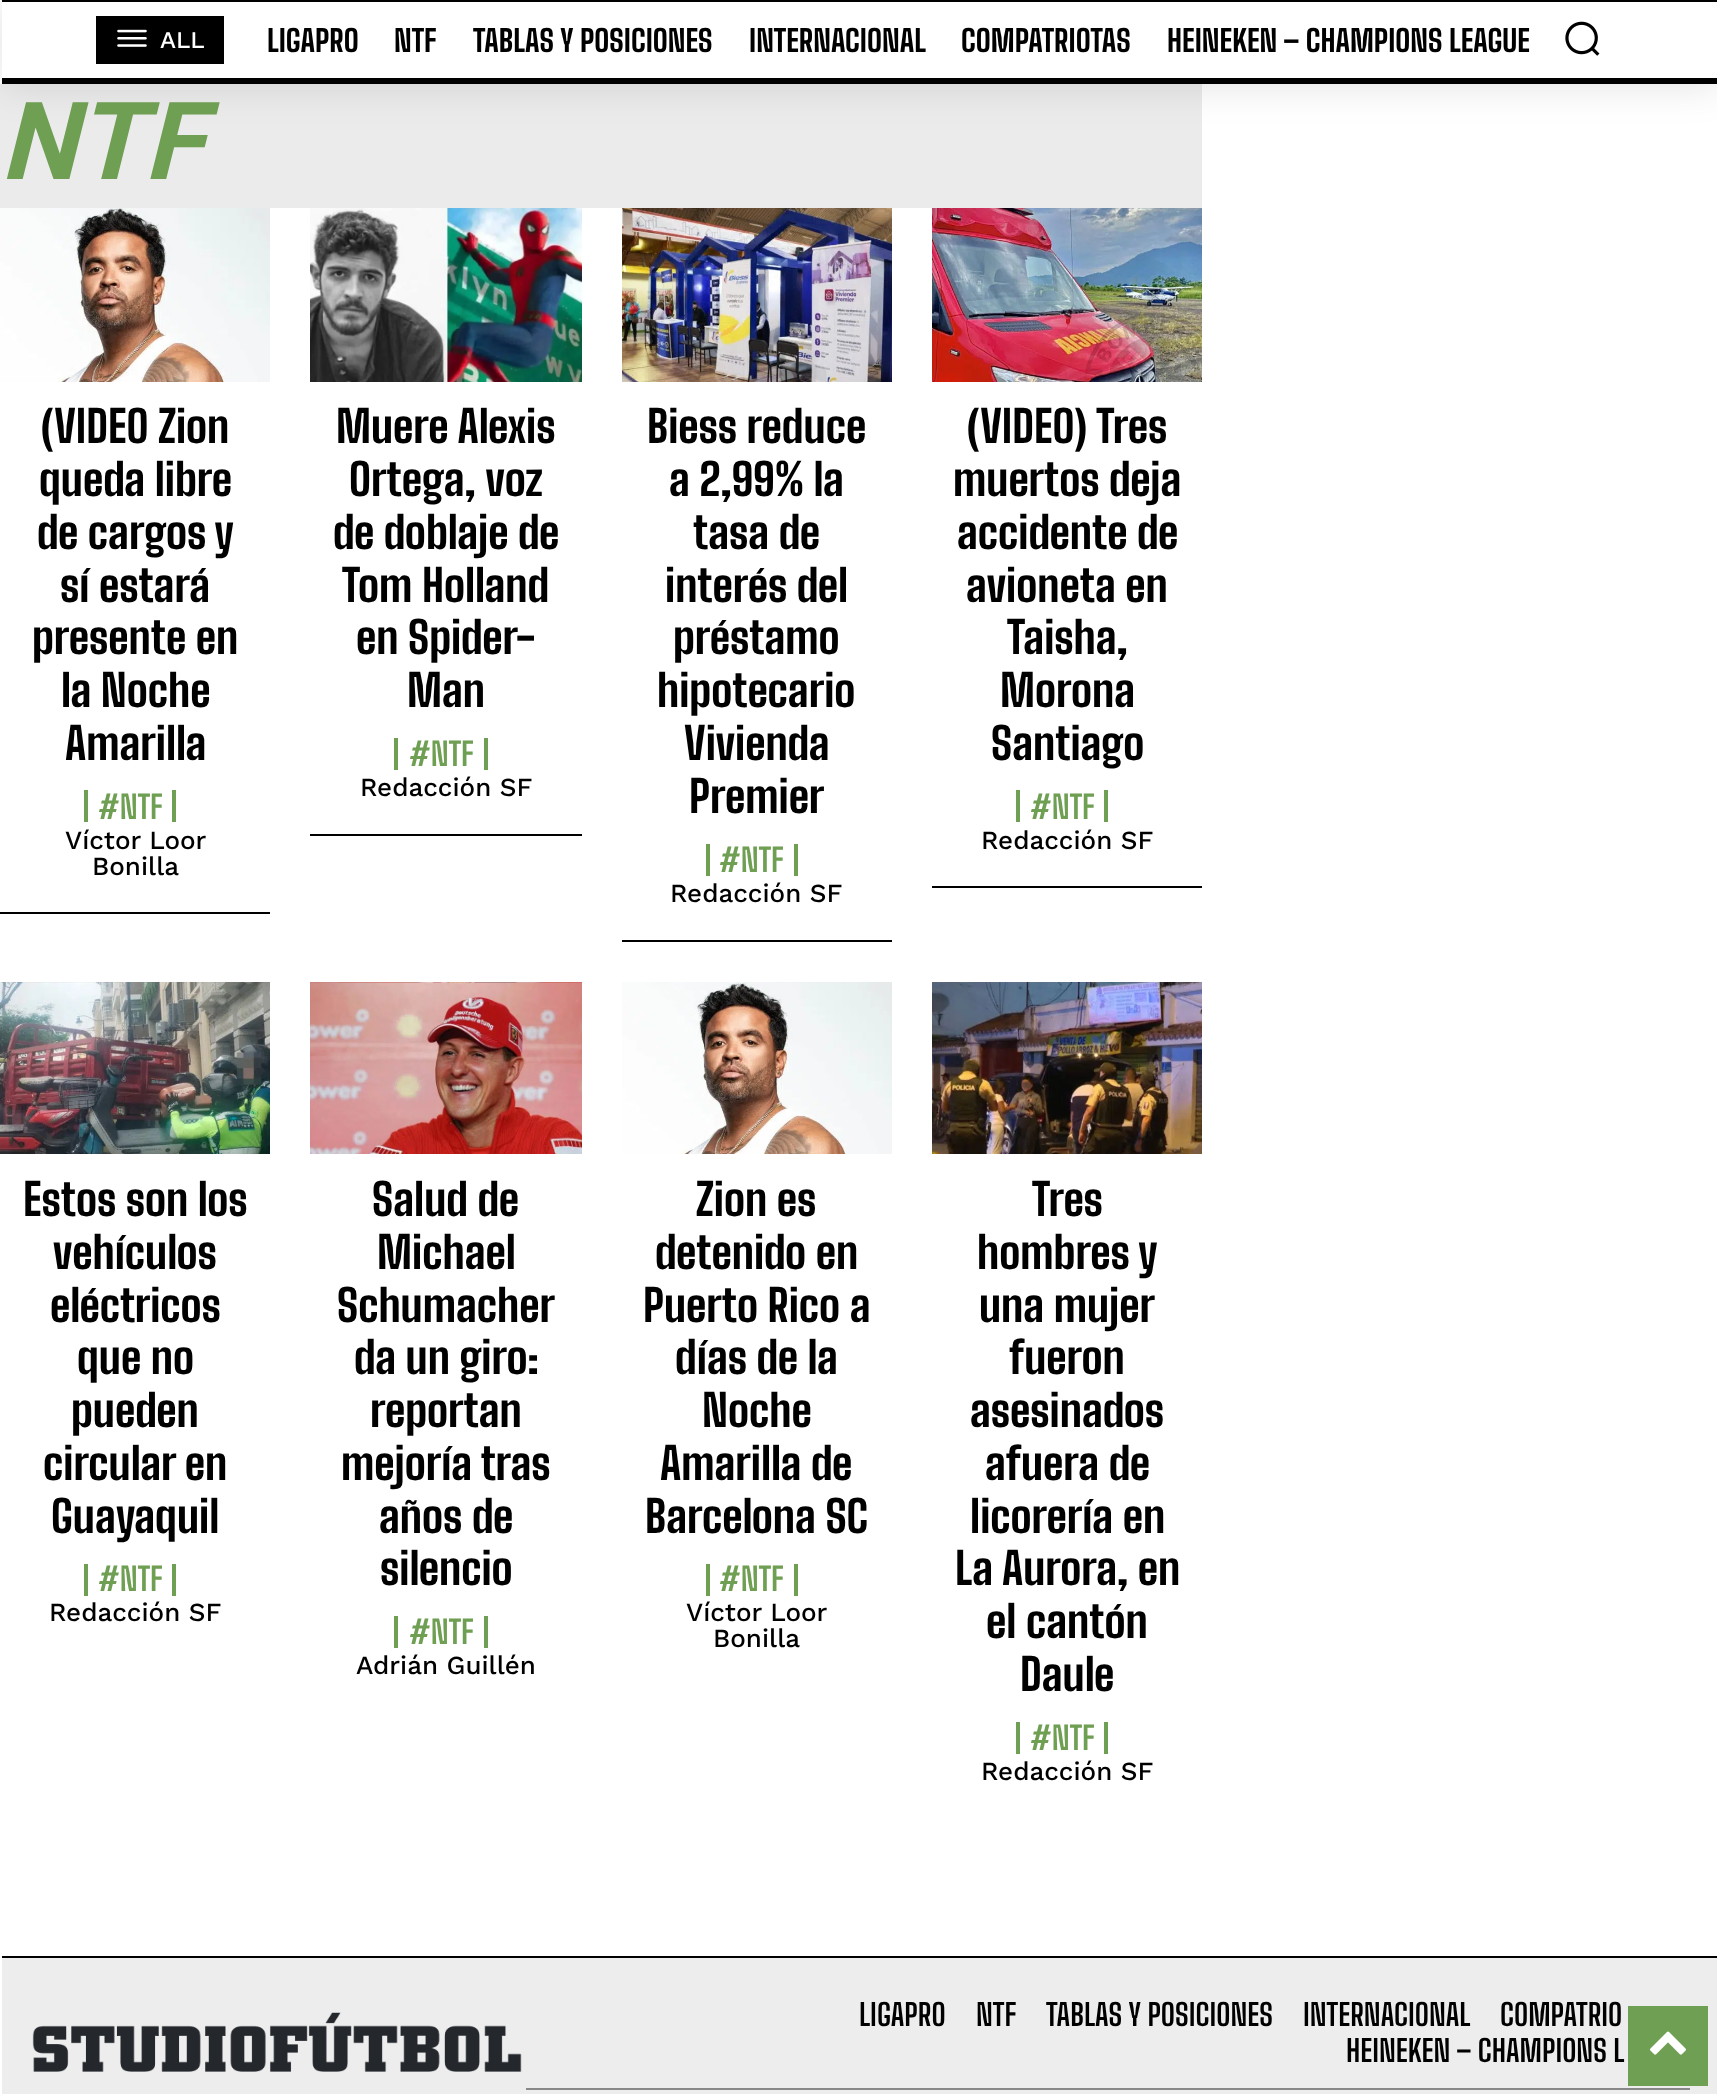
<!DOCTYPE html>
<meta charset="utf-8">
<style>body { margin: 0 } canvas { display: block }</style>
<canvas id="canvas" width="1717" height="2094"></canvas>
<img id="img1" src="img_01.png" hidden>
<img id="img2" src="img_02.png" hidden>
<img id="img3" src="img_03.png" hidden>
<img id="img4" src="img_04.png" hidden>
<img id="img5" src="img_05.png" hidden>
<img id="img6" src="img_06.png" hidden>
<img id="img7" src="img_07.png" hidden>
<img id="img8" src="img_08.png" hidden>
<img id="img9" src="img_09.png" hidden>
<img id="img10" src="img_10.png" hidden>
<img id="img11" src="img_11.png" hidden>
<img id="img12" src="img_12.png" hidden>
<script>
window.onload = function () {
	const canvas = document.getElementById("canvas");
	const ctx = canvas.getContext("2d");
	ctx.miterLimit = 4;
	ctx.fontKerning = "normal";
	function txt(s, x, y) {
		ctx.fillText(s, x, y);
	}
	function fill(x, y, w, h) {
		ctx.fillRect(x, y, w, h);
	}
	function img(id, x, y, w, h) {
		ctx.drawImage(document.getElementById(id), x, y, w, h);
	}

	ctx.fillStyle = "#FFFFFF";
	fill(0, 0, 1717, 2094);
	ctx.fillStyle = "#000000";
	fill(2, 0, 1715, 2);
	fill(2, 78, 1715, 6);
	fill(96, 16, 128, 48);
	img("img1", 117, 29, 30, 18);
	ctx.fillStyle = "#EBEBEB";
	fill(0, 84, 1202, 124);
	ctx.save();
	ctx.beginPath();
	ctx.moveTo(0, 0);
	ctx.lineTo(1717, 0);
	ctx.lineTo(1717, 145);
	ctx.lineTo(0, 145);
	ctx.closePath();
	ctx.moveTo(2, 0);
	ctx.lineTo(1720, 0);
	ctx.lineTo(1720, 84);
	ctx.lineTo(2, 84);
	ctx.closePath();
	ctx.clip("evenodd");
	ctx.fillStyle = "rgba(0, 0, 0, 0.12)";
	ctx.filter = "blur(20px)";
	ctx.beginPath();
	ctx.rect(2, 0, 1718, 84);
	ctx.fill();
	ctx.filter = "none";
	ctx.restore();
	img("img2", 1565, 21, 35, 35);
	img("img3", 0, 208, 270, 174);
	ctx.fillStyle = "#6F9F53";
	fill(172, 790, 4, 32);
	fill(84, 790, 4, 32);
	ctx.fillStyle = "#000000";
	fill(0, 912, 270, 2);
	img("img4", 310, 208, 272, 174);
	ctx.fillStyle = "#6F9F53";
	fill(484, 738, 4, 32);
	fill(394, 738, 4, 32);
	ctx.fillStyle = "#000000";
	fill(310, 834, 272, 2);
	img("img5", 622, 208, 270, 174);
	ctx.fillStyle = "#6F9F53";
	fill(794, 844, 4, 32);
	fill(706, 844, 4, 32);
	ctx.fillStyle = "#000000";
	fill(622, 940, 270, 2);
	img("img6", 932, 208, 270, 174);
	ctx.fillStyle = "#6F9F53";
	fill(1104, 790, 4, 32);
	fill(1016, 790, 4, 32);
	ctx.fillStyle = "#000000";
	fill(932, 886, 270, 2);
	img("img7", 0, 982, 270, 172);
	ctx.fillStyle = "#6F9F53";
	fill(172, 1564, 4, 32);
	fill(84, 1564, 4, 32);
	img("img8", 310, 982, 272, 172);
	fill(484, 1616, 4, 32);
	fill(394, 1616, 4, 32);
	img("img9", 622, 982, 270, 172);
	fill(794, 1564, 4, 32);
	fill(706, 1564, 4, 32);
	img("img10", 932, 982, 270, 172);
	fill(1104, 1722, 4, 32);
	fill(1016, 1722, 4, 32);
	ctx.fillStyle = "#EDEDED";
	fill(2, 1958, 1715, 136);
	ctx.fillStyle = "#000000";
	fill(2, 1956, 1715, 2);
	img("img11", 32, 2012, 490, 60);
	ctx.fillStyle = "#888888";
	fill(526, 2088, 1164, 2);
	ctx.fillStyle = "#6F9F53";
	fill(1628, 2006, 80, 80);
	img("img12", 1650, 2031, 36, 24);
	ctx.font = "500 24px Work Sans";
	ctx.fillStyle = "#FFFFFF";
	txt("ALL", 160, 48);
	ctx.font = "800 30px Big Shoulders Text";
	ctx.fillStyle = "#000000";
	txt("LIGAPRO", 267, 52);
	txt("NTF", 394, 52);
	txt("TABLAS Y POSICIONES", 473, 52);
	txt("INTERNACIONAL", 749, 52);
	txt("COMPATRIOTAS", 961, 52);
	txt("HEINEKEN – CHAMPIONS LEAGUE", 1167, 52);
	ctx.letterSpacing = "1px";
	ctx.font = "italic bold 108px Roboto";
	ctx.fillStyle = "#6F9F53";
	txt("NTF", 0, 179);
	ctx.letterSpacing = "0px";
	ctx.font = "800 44px Big Shoulders Text";
	ctx.fillStyle = "#000000";
	txt("(VIDEO Zion", 41, 443);
	txt("queda libre", 39, 496);
	txt("de cargos y", 37, 549);
	txt("sí estará", 60, 602);
	txt("presente en", 32, 654);
	txt("la Noche", 61, 707);
	txt("Amarilla", 65, 760);
	ctx.font = "bold 32px Big Shoulders Text";
	ctx.fillStyle = "#6F9F53";
	txt("#NTF", 98, 819);
	ctx.font = "500 26px Work Sans";
	ctx.fillStyle = "#000000";
	txt("Víctor Loor", 65, 849);
	txt("Bonilla", 92, 875);
	ctx.font = "800 44px Big Shoulders Text";
	txt("Muere Alexis", 336, 443);
	txt("Ortega, voz", 349, 496);
	txt("de doblaje de", 333, 549);
	txt("Tom Holland", 342, 602);
	txt("en Spider-", 356, 654);
	txt("Man", 407, 707);
	ctx.font = "bold 32px Big Shoulders Text";
	ctx.fillStyle = "#6F9F53";
	txt("#NTF", 409, 766);
	ctx.font = "500 26px Work Sans";
	ctx.fillStyle = "#000000";
	txt("Redacción SF", 360, 796);
	ctx.font = "800 44px Big Shoulders Text";
	txt("Biess reduce", 647, 443);
	txt("a 2,99% la", 669, 496);
	txt("tasa de", 693, 549);
	txt("interés del", 665, 602);
	txt("préstamo", 673, 654);
	txt("hipotecario", 657, 707);
	txt("Vivienda", 684, 760);
	txt("Premier", 689, 813);
	ctx.font = "bold 32px Big Shoulders Text";
	ctx.fillStyle = "#6F9F53";
	txt("#NTF", 719, 872);
	ctx.font = "500 26px Work Sans";
	ctx.fillStyle = "#000000";
	txt("Redacción SF", 670, 902);
	ctx.font = "800 44px Big Shoulders Text";
	txt("(VIDEO) Tres", 967, 443);
	txt("muertos deja", 953, 496);
	txt("accidente de", 957, 549);
	txt("avioneta en", 966, 602);
	txt("Taisha,", 1007, 654);
	txt("Morona", 1000, 707);
	txt("Santiago", 991, 760);
	ctx.font = "bold 32px Big Shoulders Text";
	ctx.fillStyle = "#6F9F53";
	txt("#NTF", 1030, 819);
	ctx.font = "500 26px Work Sans";
	ctx.fillStyle = "#000000";
	txt("Redacción SF", 981, 849);
	ctx.font = "800 44px Big Shoulders Text";
	txt("Estos son los", 23, 1216);
	txt("vehículos", 53, 1269);
	txt("eléctricos", 50, 1322);
	txt("que no", 77, 1374);
	txt("pueden", 71, 1427);
	txt("circular en", 43, 1480);
	txt("Guayaquil", 51, 1533);
	ctx.font = "bold 32px Big Shoulders Text";
	ctx.fillStyle = "#6F9F53";
	txt("#NTF", 98, 1591);
	ctx.font = "500 26px Work Sans";
	ctx.fillStyle = "#000000";
	txt("Redacción SF", 49, 1621);
	ctx.font = "800 44px Big Shoulders Text";
	txt("Salud de", 372, 1216);
	txt("Michael", 377, 1269);
	txt("Schumacher", 337, 1322);
	txt("da un giro:", 354, 1374);
	txt("reportan", 370, 1427);
	txt("mejoría tras", 341, 1480);
	txt("años de", 379, 1533);
	txt("silencio", 380, 1585);
	ctx.font = "bold 32px Big Shoulders Text";
	ctx.fillStyle = "#6F9F53";
	txt("#NTF", 409, 1644);
	ctx.font = "500 26px Work Sans";
	ctx.fillStyle = "#000000";
	txt("Adrián Guillén", 356, 1674);
	ctx.font = "800 44px Big Shoulders Text";
	txt("Zion es", 696, 1216);
	txt("detenido en", 655, 1269);
	txt("Puerto Rico a", 643, 1322);
	txt("días de la", 675, 1374);
	txt("Noche", 702, 1427);
	txt("Amarilla de", 660, 1480);
	txt("Barcelona SC", 645, 1533);
	ctx.font = "bold 32px Big Shoulders Text";
	ctx.fillStyle = "#6F9F53";
	txt("#NTF", 719, 1591);
	ctx.font = "500 26px Work Sans";
	ctx.fillStyle = "#000000";
	txt("Víctor Loor", 686, 1621);
	txt("Bonilla", 713, 1647);
	ctx.font = "800 44px Big Shoulders Text";
	txt("Tres", 1032, 1216);
	txt("hombres y", 977, 1269);
	txt("una mujer", 979, 1322);
	txt("fueron", 1009, 1374);
	txt("asesinados", 970, 1427);
	txt("afuera de", 985, 1480);
	txt("licorería en", 970, 1533);
	txt("La Aurora, en", 955, 1585);
	txt("el cantón", 986, 1638);
	txt("Daule", 1020, 1691);
	ctx.font = "bold 32px Big Shoulders Text";
	ctx.fillStyle = "#6F9F53";
	txt("#NTF", 1030, 1750);
	ctx.font = "500 26px Work Sans";
	ctx.fillStyle = "#000000";
	txt("Redacción SF", 981, 1780);
	ctx.font = "bold 30px Big Shoulders Text";
	txt("LIGAPRO", 859, 2026);
	txt("NTF", 976, 2026);
	txt("TABLAS Y POSICIONES", 1046, 2026);
	txt("INTERNACIONAL", 1303, 2026);
	txt("COMPATRIO", 1500, 2026);
	txt("HEINEKEN – CHAMPIONS L", 1346, 2062);
};
</script>
